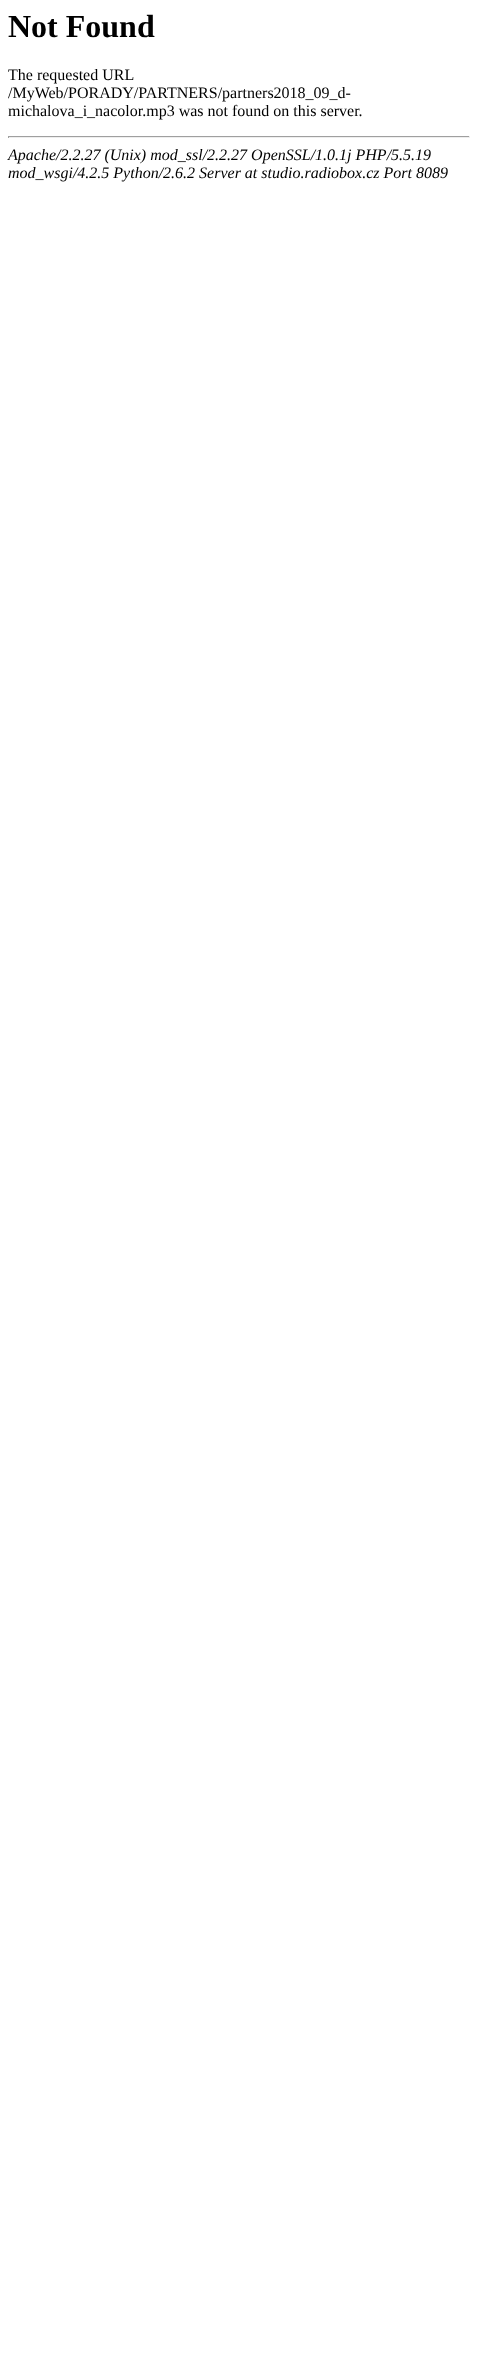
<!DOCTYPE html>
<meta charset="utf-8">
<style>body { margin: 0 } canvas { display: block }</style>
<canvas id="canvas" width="478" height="2367"></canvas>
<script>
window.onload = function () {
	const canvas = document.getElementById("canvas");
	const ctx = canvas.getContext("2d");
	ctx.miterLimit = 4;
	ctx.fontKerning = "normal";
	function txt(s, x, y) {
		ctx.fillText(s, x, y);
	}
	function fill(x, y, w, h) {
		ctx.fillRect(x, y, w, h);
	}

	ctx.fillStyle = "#FFFFFF";
	fill(0, 0, 478, 2367);
	ctx.fillStyle = "#9F9F9F";
	fill(8, 136, 462, 1);
	ctx.fillStyle = "#EEEEEE";
	fill(469, 136, 1, 2);
	fill(8, 137, 462, 1);
	ctx.fillStyle = "#9F9F9F";
	fill(8, 136, 1, 2);
	ctx.font = "bold 32px Liberation Serif";
	ctx.fillStyle = "#000000";
	txt("Not Found", 8, 37);
	ctx.font = "16px Liberation Serif";
	txt("The requested URL", 8, 80);
	txt("/MyWeb/PORADY/PARTNERS/partners2018_09_d-", 8, 98);
	txt("michalova_i_nacolor.mp3 was not found on this server.", 8, 116);
	ctx.font = "italic 16px Liberation Serif";
	txt("Apache/2.2.27 (Unix) mod_ssl/2.2.27 OpenSSL/1.0.1j PHP/5.5.19", 8, 160);
	txt("mod_wsgi/4.2.5 Python/2.6.2 Server at studio.radiobox.cz Port 8089", 8, 178);
};
</script>
